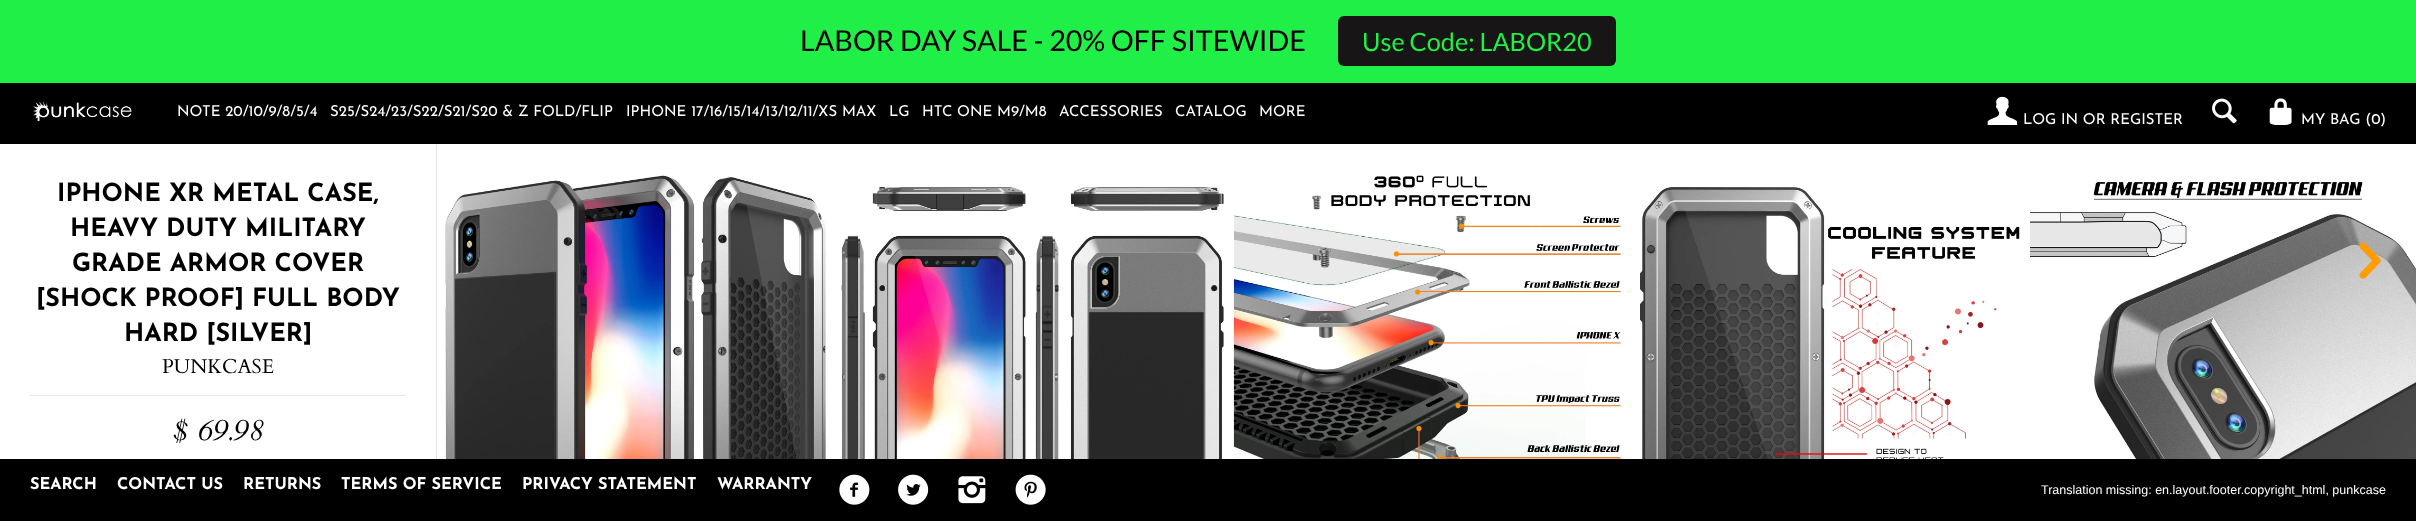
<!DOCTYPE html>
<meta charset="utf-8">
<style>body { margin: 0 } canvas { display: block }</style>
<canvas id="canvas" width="2416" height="521"></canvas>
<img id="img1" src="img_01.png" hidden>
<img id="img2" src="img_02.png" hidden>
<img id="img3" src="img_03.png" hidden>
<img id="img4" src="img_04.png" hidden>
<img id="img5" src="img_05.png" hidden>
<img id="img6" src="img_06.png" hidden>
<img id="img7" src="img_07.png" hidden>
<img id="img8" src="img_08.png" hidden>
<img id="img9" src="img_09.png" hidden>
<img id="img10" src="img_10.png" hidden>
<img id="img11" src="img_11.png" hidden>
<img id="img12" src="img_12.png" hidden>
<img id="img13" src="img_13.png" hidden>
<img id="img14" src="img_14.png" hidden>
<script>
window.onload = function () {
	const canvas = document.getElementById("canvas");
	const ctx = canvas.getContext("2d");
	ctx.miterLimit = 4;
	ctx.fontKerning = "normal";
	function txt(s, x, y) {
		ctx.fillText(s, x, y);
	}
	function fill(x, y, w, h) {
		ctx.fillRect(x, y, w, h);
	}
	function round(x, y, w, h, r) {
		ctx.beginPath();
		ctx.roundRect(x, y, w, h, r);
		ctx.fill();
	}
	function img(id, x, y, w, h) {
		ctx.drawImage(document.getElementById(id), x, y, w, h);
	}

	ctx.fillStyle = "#FFFFFF";
	fill(0, 0, 2416, 521);
	ctx.fillStyle = "#20EF48";
	fill(0, 0, 2416, 83);
	ctx.fillStyle = "#171515";
	round(1338, 16, 278, 50, 6);
	ctx.fillStyle = "#000000";
	fill(0, 83, 2416, 61);
	img("img1", 33, 101, 99, 20);
	img("img2", 1987, 96, 31, 29);
	img("img3", 2212, 98, 25, 26);
	img("img4", 2269, 98, 23, 27);
	ctx.fillStyle = "#E6E6E6";
	fill(436, 144, 1, 315);
	fill(30, 395, 376, 1);
	img("img5", 445, 175, 381, 284);
	img("img6", 841, 186, 383, 273);
	img("img7", 1233, 175, 390, 284);
	img("img8", 1640, 187, 380, 272);
	img("img9", 2030, 182, 386, 277);
	img("img10", 2359, 242, 22, 37);
	ctx.fillStyle = "#000000";
	fill(0, 459, 2416, 62);
	img("img11", 839, 474, 31, 31);
	img("img12", 898, 474, 31, 31);
	img("img13", 958, 476, 28, 28);
	img("img14", 1015, 474, 31, 31);
	ctx.font = "28.75px Lato";
	txt("LABOR DAY SALE - 20% OFF SITEWIDE", 800, 51);
	ctx.font = "25.25px Lato";
	ctx.fillStyle = "#20EF48";
	txt("Use Code: LABOR20", 1362, 51);
	ctx.font = "15px Josefin Sans";
	ctx.fillStyle = "#FFFFFF";
	txt("NOTE 20/10/9/8/5/4", 177, 116);
	txt("S25/S24/23/S22/S21/S20 & Z FOLD/FLIP", 330, 116);
	txt("IPHONE 17/16/15/14/13/12/11/XS MAX", 626, 116);
	txt("LG", 889, 116);
	txt("HTC ONE M9/M8", 922, 116);
	txt("ACCESSORIES", 1059, 116);
	txt("CATALOG", 1175, 116);
	txt("MORE", 1259, 116);
	txt("LOG IN OR REGISTER", 2023, 124);
	txt("MY BAG (0", 2301, 124);
	txt(")", 2380, 124);
	ctx.font = "bold 25px Josefin Sans";
	ctx.fillStyle = "#000000";
	txt("IPHONE XR METAL CASE,", 57, 201);
	txt("HEAVY DUTY MILITARY", 70, 236);
	txt("GRADE ARMOR COVER", 72, 271);
	txt("[SHOCK PROOF] FULL BODY", 36, 306);
	txt("HARD [SILVER]", 124, 341);
	ctx.font = "20px Cardo";
	txt("PUNKCASE", 162, 373);
	ctx.font = "italic 30px Cardo";
	txt("$ 69.98", 173, 440);
	ctx.font = "bold 16.25px Josefin Sans";
	ctx.fillStyle = "#FFFFFF";
	txt("SEARCH", 30, 489);
	txt("CONTACT US", 117, 489);
	txt("RETURNS", 243, 489);
	txt("TERMS OF SERVICE", 341, 489);
	txt("PRIVACY STATEMENT", 522, 489);
	txt("WARRANTY", 717, 489);
	ctx.font = "12.5px Liberation Sans";
	txt("Translation missing: en.layout.footer.copyright_html, punkcase", 2041, 494);
};
</script>
